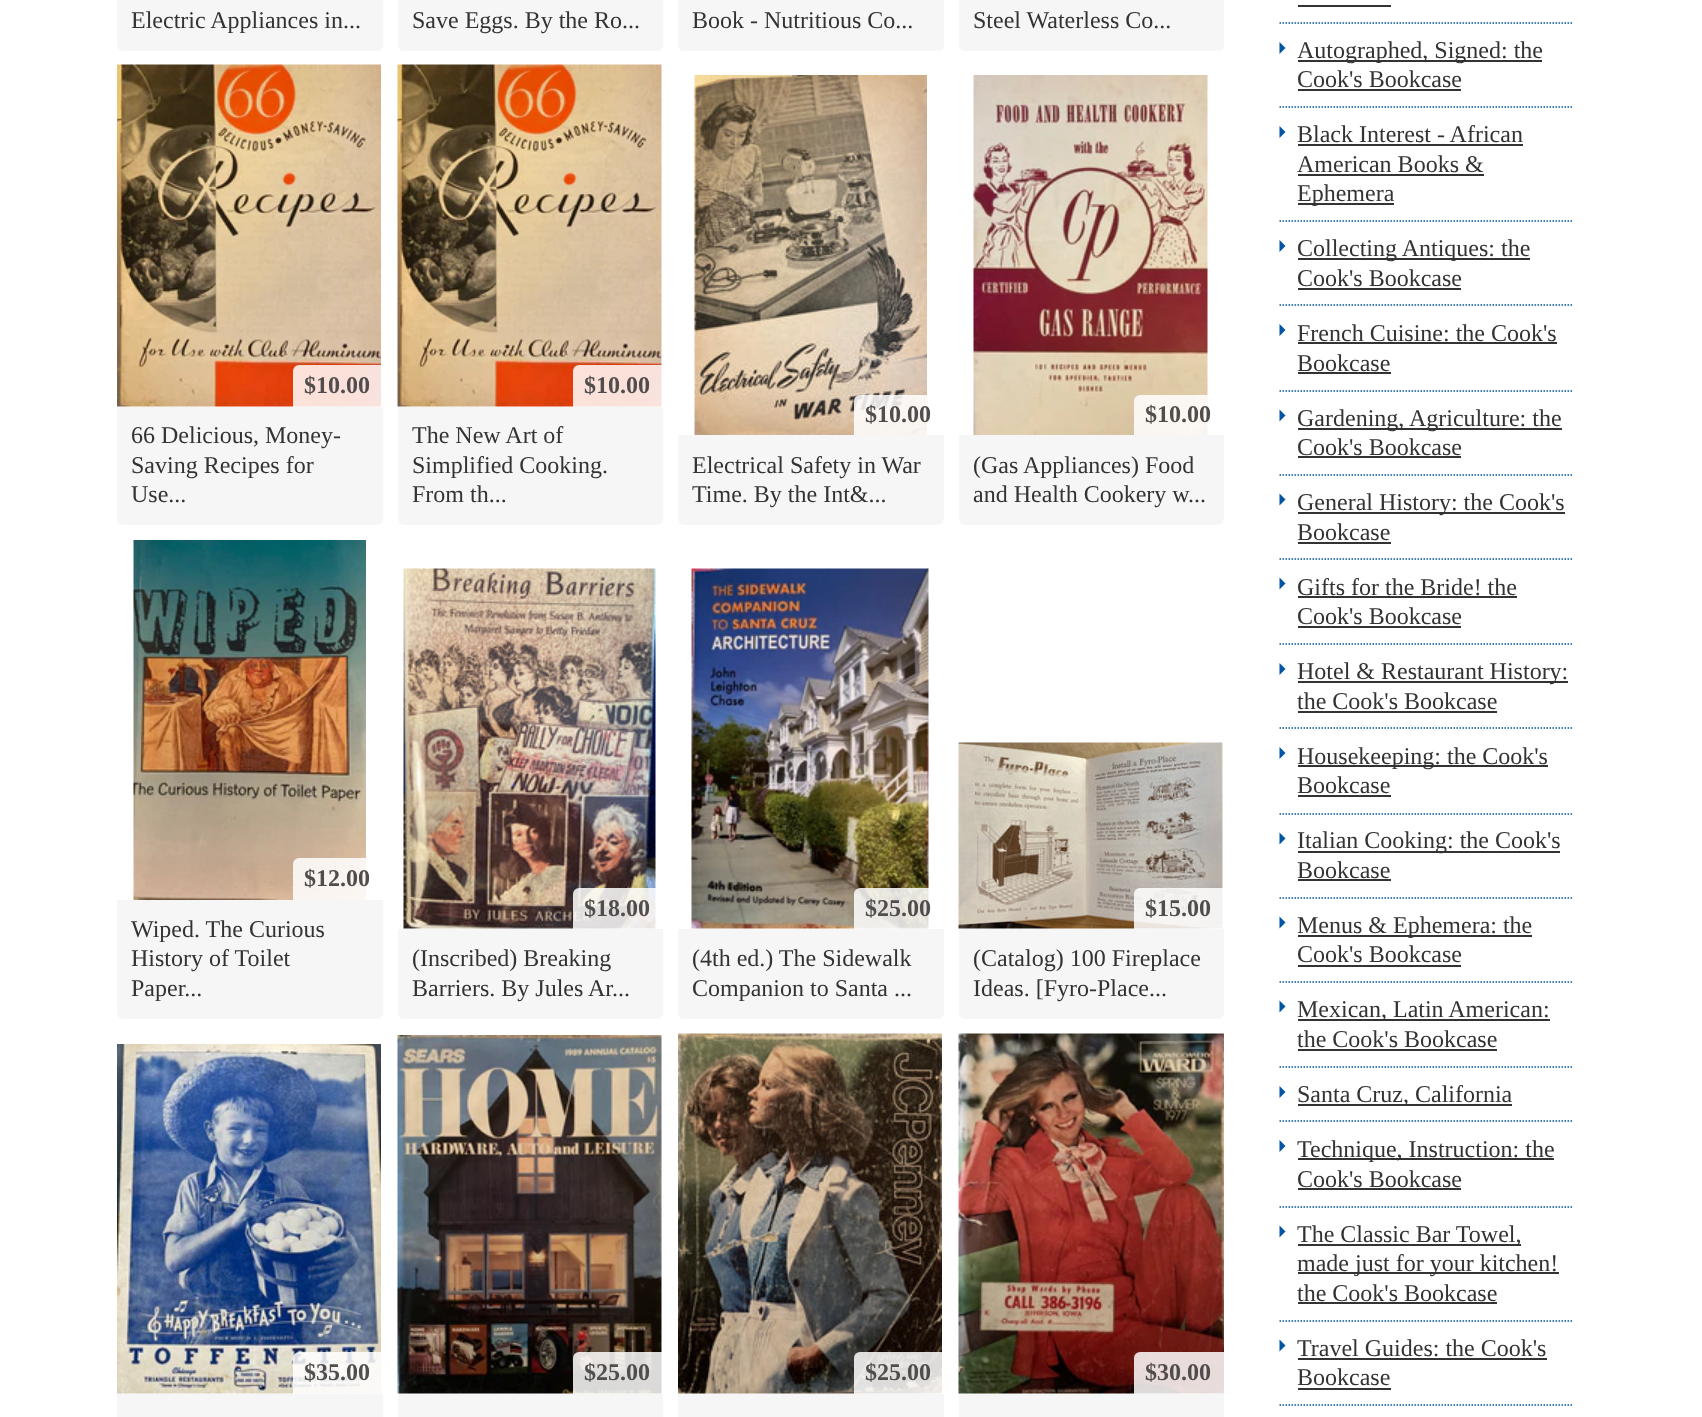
<!DOCTYPE html>
<meta charset="utf-8">
<style>body { margin: 0 } canvas { display: block }</style>
<canvas id="canvas" width="1702" height="1417"></canvas>
<img id="img1" src="img_01.png" hidden>
<img id="img2" src="img_02.png" hidden>
<img id="img3" src="img_03.png" hidden>
<img id="img4" src="img_04.png" hidden>
<img id="img5" src="img_05.png" hidden>
<img id="img6" src="img_06.png" hidden>
<img id="img7" src="img_07.png" hidden>
<img id="img8" src="img_08.png" hidden>
<img id="img9" src="img_09.png" hidden>
<img id="img10" src="img_10.png" hidden>
<img id="img11" src="img_11.png" hidden>
<img id="img12" src="img_12.png" hidden>
<script>
window.onload = function () {
	const canvas = document.getElementById("canvas");
	const ctx = canvas.getContext("2d");
	ctx.miterLimit = 4;
	ctx.fontKerning = "normal";
	function txt(s, x, y) {
		ctx.fillText(s, x, y);
	}
	function fill(x, y, w, h) {
		ctx.fillRect(x, y, w, h);
	}
	function img(id, x, y, w, h) {
		ctx.drawImage(document.getElementById(id), x, y, w, h);
	}

	ctx.fillStyle = "#FFFFFF";
	fill(0, 0, 1702, 1417);
	ctx.fillStyle = "#F6F6F6";
	ctx.beginPath();
	ctx.moveTo(117, -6);
	ctx.lineTo(383, -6);
	ctx.lineTo(383, 45);
	ctx.bezierCurveTo(383, 48.5, 380.5, 51, 377, 51);
	ctx.lineTo(123, 51);
	ctx.bezierCurveTo(119.5, 51, 117, 48.5, 117, 45);
	ctx.closePath();
	ctx.fill();
	ctx.beginPath();
	ctx.moveTo(398, -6);
	ctx.lineTo(663, -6);
	ctx.lineTo(663, 45);
	ctx.bezierCurveTo(663, 48.5, 660.5, 51, 657, 51);
	ctx.lineTo(404, 51);
	ctx.bezierCurveTo(400.5, 51, 398, 48.5, 398, 45);
	ctx.closePath();
	ctx.fill();
	ctx.beginPath();
	ctx.moveTo(678, -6);
	ctx.lineTo(944, -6);
	ctx.lineTo(944, 45);
	ctx.bezierCurveTo(944, 48.5, 941.5, 51, 938, 51);
	ctx.lineTo(684, 51);
	ctx.bezierCurveTo(680.5, 51, 678, 48.5, 678, 45);
	ctx.closePath();
	ctx.fill();
	ctx.beginPath();
	ctx.moveTo(959, -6);
	ctx.lineTo(1224, -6);
	ctx.lineTo(1224, 45);
	ctx.bezierCurveTo(1224, 48.5, 1221.5, 51, 1218, 51);
	ctx.lineTo(965, 51);
	ctx.bezierCurveTo(961.5, 51, 959, 48.5, 959, 45);
	ctx.closePath();
	ctx.fill();
	img("img1", 117, 64, 264, 343);
	ctx.fillStyle = "rgba(255, 255, 255, 0.85)";
	ctx.beginPath();
	ctx.roundRect(293, 365, 90, 42, [6, 0, 0, 0]);
	ctx.fill();
	ctx.fillStyle = "#F6F6F6";
	ctx.beginPath();
	ctx.roundRect(117, 407, 266, 118, [0, 0, 6, 6]);
	ctx.fill();
	img("img2", 397, 64, 265, 343);
	ctx.fillStyle = "rgba(255, 255, 255, 0.85)";
	ctx.beginPath();
	ctx.roundRect(573, 365, 90, 42, [6, 0, 0, 0]);
	ctx.fill();
	ctx.fillStyle = "#F6F6F6";
	ctx.beginPath();
	ctx.roundRect(398, 407, 265, 118, [0, 0, 6, 6]);
	ctx.fill();
	img("img3", 694, 75, 233, 360);
	ctx.fillStyle = "rgba(255, 255, 255, 0.85)";
	ctx.beginPath();
	ctx.roundRect(854, 395, 90, 40, [6, 0, 0, 0]);
	ctx.fill();
	ctx.fillStyle = "#F6F6F6";
	ctx.beginPath();
	ctx.roundRect(678, 435, 266, 90, [0, 0, 6, 6]);
	ctx.fill();
	img("img4", 973, 75, 235, 360);
	ctx.fillStyle = "rgba(255, 255, 255, 0.85)";
	ctx.beginPath();
	ctx.roundRect(1134, 395, 90, 40, [6, 0, 0, 0]);
	ctx.fill();
	ctx.fillStyle = "#F6F6F6";
	ctx.beginPath();
	ctx.roundRect(959, 435, 265, 90, [0, 0, 6, 6]);
	ctx.fill();
	img("img5", 133, 540, 233, 360);
	ctx.fillStyle = "rgba(255, 255, 255, 0.85)";
	ctx.beginPath();
	ctx.roundRect(293, 858, 90, 42, [6, 0, 0, 0]);
	ctx.fill();
	ctx.fillStyle = "#F6F6F6";
	ctx.beginPath();
	ctx.roundRect(117, 900, 266, 119, [0, 0, 6, 6]);
	ctx.fill();
	img("img6", 403, 568, 253, 361);
	ctx.fillStyle = "rgba(255, 255, 255, 0.85)";
	ctx.beginPath();
	ctx.roundRect(573, 888, 90, 41, [6, 0, 0, 0]);
	ctx.fill();
	ctx.fillStyle = "#F6F6F6";
	ctx.beginPath();
	ctx.roundRect(398, 929, 265, 90, [0, 0, 6, 6]);
	ctx.fill();
	img("img7", 691, 568, 238, 361);
	ctx.fillStyle = "rgba(255, 255, 255, 0.85)";
	ctx.beginPath();
	ctx.roundRect(854, 888, 90, 41, [6, 0, 0, 0]);
	ctx.fill();
	ctx.fillStyle = "#F6F6F6";
	ctx.beginPath();
	ctx.roundRect(678, 929, 266, 90, [0, 0, 6, 6]);
	ctx.fill();
	img("img8", 958, 742, 265, 187);
	ctx.fillStyle = "rgba(255, 255, 255, 0.85)";
	ctx.beginPath();
	ctx.roundRect(1134, 888, 90, 41, [6, 0, 0, 0]);
	ctx.fill();
	ctx.fillStyle = "#F6F6F6";
	ctx.beginPath();
	ctx.roundRect(959, 929, 265, 90, [0, 0, 6, 6]);
	ctx.fill();
	img("img9", 117, 1044, 264, 350);
	ctx.fillStyle = "rgba(255, 255, 255, 0.85)";
	ctx.beginPath();
	ctx.roundRect(293, 1352, 90, 42, [6, 0, 0, 0]);
	ctx.fill();
	ctx.fillStyle = "#F6F6F6";
	fill(117, 1394, 266, 23);
	img("img10", 397, 1035, 265, 359);
	ctx.fillStyle = "rgba(255, 255, 255, 0.85)";
	ctx.beginPath();
	ctx.roundRect(573, 1352, 90, 42, [6, 0, 0, 0]);
	ctx.fill();
	ctx.fillStyle = "#F6F6F6";
	fill(398, 1394, 265, 23);
	img("img11", 678, 1033, 264, 361);
	ctx.fillStyle = "rgba(255, 255, 255, 0.85)";
	ctx.beginPath();
	ctx.roundRect(854, 1352, 90, 42, [6, 0, 0, 0]);
	ctx.fill();
	ctx.fillStyle = "#F6F6F6";
	fill(678, 1394, 266, 23);
	img("img12", 958, 1033, 266, 361);
	ctx.fillStyle = "rgba(255, 255, 255, 0.85)";
	ctx.beginPath();
	ctx.roundRect(1134, 1352, 90, 42, [6, 0, 0, 0]);
	ctx.fill();
	ctx.fillStyle = "#F6F6F6";
	fill(959, 1394, 265, 23);
	ctx.fillStyle = "#333333";
	fill(1298, 5, 93, 2);
	ctx.beginPath();
	ctx.moveTo(1279.5, 23);
	ctx.lineTo(1572, 23);
	ctx.strokeStyle = "#0055A5";
	ctx.lineWidth = 1.5;
	ctx.setLineDash([1.5, 1.5]);
	ctx.stroke();
	ctx.fillStyle = "#0055A5";
	ctx.beginPath();
	ctx.moveTo(1279.5, 54);
	ctx.lineTo(1279.5, 42);
	ctx.lineTo(1285.5, 48);
	ctx.closePath();
	ctx.fill();
	ctx.fillStyle = "#333333";
	fill(1298, 60, 244, 2);
	fill(1298, 89, 163, 2);
	ctx.beginPath();
	ctx.moveTo(1279.5, 107);
	ctx.lineTo(1572, 107);
	ctx.stroke();
	ctx.fillStyle = "#0055A5";
	ctx.beginPath();
	ctx.moveTo(1279.5, 138);
	ctx.lineTo(1279.5, 126);
	ctx.lineTo(1285.5, 132);
	ctx.closePath();
	ctx.fill();
	ctx.fillStyle = "#333333";
	fill(1298, 144, 225, 2);
	fill(1298, 174, 186, 2);
	fill(1298, 203, 96, 2);
	ctx.beginPath();
	ctx.moveTo(1279.5, 221);
	ctx.lineTo(1572, 221);
	ctx.stroke();
	ctx.fillStyle = "#0055A5";
	ctx.beginPath();
	ctx.moveTo(1279.5, 252);
	ctx.lineTo(1279.5, 240);
	ctx.lineTo(1285.5, 246);
	ctx.closePath();
	ctx.fill();
	ctx.fillStyle = "#333333";
	fill(1298, 258, 232, 2);
	fill(1298, 288, 163, 2);
	ctx.beginPath();
	ctx.moveTo(1279.5, 305);
	ctx.lineTo(1572, 305);
	ctx.stroke();
	ctx.fillStyle = "#0055A5";
	ctx.beginPath();
	ctx.moveTo(1279.5, 336);
	ctx.lineTo(1279.5, 324);
	ctx.lineTo(1285.5, 330);
	ctx.closePath();
	ctx.fill();
	ctx.fillStyle = "#333333";
	fill(1298, 342, 259, 2);
	fill(1298, 372, 93, 2);
	ctx.beginPath();
	ctx.moveTo(1279.5, 391);
	ctx.lineTo(1572, 391);
	ctx.stroke();
	ctx.fillStyle = "#0055A5";
	ctx.beginPath();
	ctx.moveTo(1279.5, 421.5);
	ctx.lineTo(1279.5, 409.5);
	ctx.lineTo(1285.5, 415.5);
	ctx.closePath();
	ctx.fill();
	ctx.fillStyle = "#333333";
	fill(1298, 428, 264, 2);
	fill(1298, 456, 163, 2);
	ctx.beginPath();
	ctx.moveTo(1279.5, 475);
	ctx.lineTo(1572, 475);
	ctx.stroke();
	ctx.fillStyle = "#0055A5";
	ctx.beginPath();
	ctx.moveTo(1279.5, 505.5);
	ctx.lineTo(1279.5, 493.5);
	ctx.lineTo(1285.5, 499.5);
	ctx.closePath();
	ctx.fill();
	ctx.fillStyle = "#333333";
	fill(1298, 512, 267, 2);
	fill(1298, 542, 93, 2);
	ctx.beginPath();
	ctx.moveTo(1279.5, 559);
	ctx.lineTo(1572, 559);
	ctx.stroke();
	ctx.fillStyle = "#0055A5";
	ctx.beginPath();
	ctx.moveTo(1279.5, 589.5);
	ctx.lineTo(1279.5, 577.5);
	ctx.lineTo(1285.5, 583.5);
	ctx.closePath();
	ctx.fill();
	ctx.fillStyle = "#333333";
	fill(1298, 596, 219, 2);
	fill(1298, 626, 163, 2);
	ctx.beginPath();
	ctx.moveTo(1279.5, 644);
	ctx.lineTo(1572, 644);
	ctx.stroke();
	ctx.fillStyle = "#0055A5";
	ctx.beginPath();
	ctx.moveTo(1279.5, 675);
	ctx.lineTo(1279.5, 663);
	ctx.lineTo(1285.5, 669);
	ctx.closePath();
	ctx.fill();
	ctx.fillStyle = "#333333";
	fill(1298, 681, 270, 2);
	fill(1298, 711, 199, 2);
	ctx.beginPath();
	ctx.moveTo(1279.5, 728);
	ctx.lineTo(1572, 728);
	ctx.stroke();
	ctx.fillStyle = "#0055A5";
	ctx.beginPath();
	ctx.moveTo(1279.5, 759);
	ctx.lineTo(1279.5, 747);
	ctx.lineTo(1285.5, 753);
	ctx.closePath();
	ctx.fill();
	ctx.fillStyle = "#333333";
	fill(1298, 765, 250, 2);
	fill(1298, 795, 93, 2);
	ctx.beginPath();
	ctx.moveTo(1279.5, 814);
	ctx.lineTo(1572, 814);
	ctx.stroke();
	ctx.fillStyle = "#0055A5";
	ctx.beginPath();
	ctx.moveTo(1279.5, 844.5);
	ctx.lineTo(1279.5, 832.5);
	ctx.lineTo(1285.5, 838.5);
	ctx.closePath();
	ctx.fill();
	ctx.fillStyle = "#333333";
	fill(1298, 851, 262, 2);
	fill(1298, 879, 93, 2);
	ctx.beginPath();
	ctx.moveTo(1279.5, 898);
	ctx.lineTo(1572, 898);
	ctx.stroke();
	ctx.fillStyle = "#0055A5";
	ctx.beginPath();
	ctx.moveTo(1279.5, 928.5);
	ctx.lineTo(1279.5, 916.5);
	ctx.lineTo(1285.5, 922.5);
	ctx.closePath();
	ctx.fill();
	ctx.fillStyle = "#333333";
	fill(1298, 935, 234, 2);
	fill(1298, 965, 163, 2);
	ctx.beginPath();
	ctx.moveTo(1279.5, 982);
	ctx.lineTo(1572, 982);
	ctx.stroke();
	ctx.fillStyle = "#0055A5";
	ctx.beginPath();
	ctx.moveTo(1279.5, 1012.5);
	ctx.lineTo(1279.5, 1000.5);
	ctx.lineTo(1285.5, 1006.5);
	ctx.closePath();
	ctx.fill();
	ctx.fillStyle = "#333333";
	fill(1298, 1019, 252, 2);
	fill(1298, 1049, 199, 2);
	ctx.beginPath();
	ctx.moveTo(1279.5, 1067);
	ctx.lineTo(1572, 1067);
	ctx.stroke();
	ctx.fillStyle = "#0055A5";
	ctx.beginPath();
	ctx.moveTo(1279.5, 1098);
	ctx.lineTo(1279.5, 1086);
	ctx.lineTo(1285.5, 1092);
	ctx.closePath();
	ctx.fill();
	ctx.fillStyle = "#333333";
	fill(1298, 1104, 214, 2);
	ctx.beginPath();
	ctx.moveTo(1279.5, 1121);
	ctx.lineTo(1572, 1121);
	ctx.stroke();
	ctx.fillStyle = "#0055A5";
	ctx.beginPath();
	ctx.moveTo(1279.5, 1152);
	ctx.lineTo(1279.5, 1140);
	ctx.lineTo(1285.5, 1146);
	ctx.closePath();
	ctx.fill();
	ctx.fillStyle = "#333333";
	fill(1298, 1158, 256, 2);
	fill(1298, 1188, 163, 2);
	ctx.beginPath();
	ctx.moveTo(1279.5, 1207);
	ctx.lineTo(1572, 1207);
	ctx.stroke();
	ctx.fillStyle = "#0055A5";
	ctx.beginPath();
	ctx.moveTo(1279.5, 1237.5);
	ctx.lineTo(1279.5, 1225.5);
	ctx.lineTo(1285.5, 1231.5);
	ctx.closePath();
	ctx.fill();
	ctx.fillStyle = "#333333";
	fill(1298, 1244, 223, 2);
	fill(1298, 1272, 261, 2);
	fill(1298, 1302, 199, 2);
	ctx.beginPath();
	ctx.moveTo(1279.5, 1321);
	ctx.lineTo(1572, 1321);
	ctx.stroke();
	ctx.fillStyle = "#0055A5";
	ctx.beginPath();
	ctx.moveTo(1279.5, 1351.5);
	ctx.lineTo(1279.5, 1339.5);
	ctx.lineTo(1285.5, 1345.5);
	ctx.closePath();
	ctx.fill();
	ctx.fillStyle = "#333333";
	fill(1298, 1358, 249, 2);
	fill(1298, 1388, 93, 2);
	ctx.beginPath();
	ctx.moveTo(1279.5, 1405);
	ctx.lineTo(1572, 1405);
	ctx.stroke();
	ctx.font = "24px Liberation Serif";
	txt("Electric Appliances in...", 131, 28);
	txt("Save Eggs. By the Ro...", 412, 28);
	txt("Book - Nutritious Co...", 692, 28);
	txt("Steel Waterless Co...", 973, 28);
	ctx.font = "bold 24px Liberation Serif";
	ctx.fillStyle = "#514D4C";
	txt("$10.00", 304, 393);
	ctx.font = "24px Liberation Serif";
	ctx.fillStyle = "#333333";
	txt("66 Delicious, Money-", 131, 443);
	txt("Saving Recipes for", 131, 473);
	txt("Use...", 131, 502);
	ctx.font = "bold 24px Liberation Serif";
	ctx.fillStyle = "#514D4C";
	txt("$10.00", 584, 393);
	ctx.font = "24px Liberation Serif";
	ctx.fillStyle = "#333333";
	txt("The New Art of", 412, 443);
	txt("Simplified Cooking.", 412, 473);
	txt("From th...", 412, 502);
	ctx.font = "bold 24px Liberation Serif";
	ctx.fillStyle = "#514D4C";
	txt("$10.00", 865, 422);
	ctx.font = "24px Liberation Serif";
	ctx.fillStyle = "#333333";
	txt("Electrical Safety in War", 692, 473);
	txt("Time. By the Int&...", 692, 502);
	ctx.font = "bold 24px Liberation Serif";
	ctx.fillStyle = "#514D4C";
	txt("$10.00", 1145, 422);
	ctx.font = "24px Liberation Serif";
	ctx.fillStyle = "#333333";
	txt("(Gas Appliances) Food", 973, 473);
	txt("and Health Cookery w...", 973, 502);
	ctx.font = "bold 24px Liberation Serif";
	ctx.fillStyle = "#514D4C";
	txt("$12.00", 304, 886);
	ctx.font = "24px Liberation Serif";
	ctx.fillStyle = "#333333";
	txt("Wiped. The Curious", 131, 937);
	txt("History of Toilet", 131, 966);
	txt("Paper...", 131, 996);
	ctx.font = "bold 24px Liberation Serif";
	ctx.fillStyle = "#514D4C";
	txt("$18.00", 584, 916);
	ctx.font = "24px Liberation Serif";
	ctx.fillStyle = "#333333";
	txt("(Inscribed) Breaking", 412, 966);
	txt("Barriers. By Jules Ar...", 412, 996);
	ctx.font = "bold 24px Liberation Serif";
	ctx.fillStyle = "#514D4C";
	txt("$25.00", 865, 916);
	ctx.font = "24px Liberation Serif";
	ctx.fillStyle = "#333333";
	txt("(4th ed.) The Sidewalk", 692, 966);
	txt("Companion to Santa ...", 692, 996);
	ctx.font = "bold 24px Liberation Serif";
	ctx.fillStyle = "#514D4C";
	txt("$15.00", 1145, 916);
	ctx.font = "24px Liberation Serif";
	ctx.fillStyle = "#333333";
	txt("(Catalog) 100 Fireplace", 973, 966);
	txt("Ideas. [Fyro-Place...", 973, 996);
	ctx.font = "bold 24px Liberation Serif";
	ctx.fillStyle = "#514D4C";
	txt("$35.00", 304, 1380);
	txt("$25.00", 584, 1380);
	txt("$25.00", 865, 1380);
	txt("$30.00", 1145, 1380);
	ctx.font = "24px Liberation Serif";
	ctx.fillStyle = "#333333";
	txt("Autographed, Signed: the", 1297, 58);
	txt("Cook's Bookcase", 1297, 87);
	txt("Black Interest - African", 1297, 142);
	txt("American Books &", 1297, 172);
	txt("Ephemera", 1297, 201);
	txt("Collecting Antiques: the", 1297, 256);
	txt("Cook's Bookcase", 1297, 286);
	txt("French Cuisine: the Cook's", 1297, 341);
	txt("Bookcase", 1297, 371);
	txt("Gardening, Agriculture: the", 1297, 426);
	txt("Cook's Bookcase", 1297, 455);
	txt("General History: the Cook's", 1297, 510);
	txt("Bookcase", 1297, 540);
	txt("Gifts for the Bride! the", 1297, 595);
	txt("Cook's Bookcase", 1297, 624);
	txt("Hotel & Restaurant History:", 1297, 679);
	txt("the Cook's Bookcase", 1297, 709);
	txt("Housekeeping: the Cook's", 1297, 764);
	txt("Bookcase", 1297, 793);
	txt("Italian Cooking: the Cook's", 1297, 848);
	txt("Bookcase", 1297, 878);
	txt("Menus & Ephemera: the", 1297, 933);
	txt("Cook's Bookcase", 1297, 962);
	txt("Mexican, Latin American:", 1297, 1017);
	txt("the Cook's Bookcase", 1297, 1047);
	txt("Santa Cruz, California", 1297, 1102);
	txt("Technique, Instruction: the", 1297, 1157);
	txt("Cook's Bookcase", 1297, 1187);
	txt("The Classic Bar Towel,", 1297, 1242);
	txt("made just for your kitchen!", 1297, 1271);
	txt("the Cook's Bookcase", 1297, 1301);
	txt("Travel Guides: the Cook's", 1297, 1356);
	txt("Bookcase", 1297, 1385);
};
</script>
